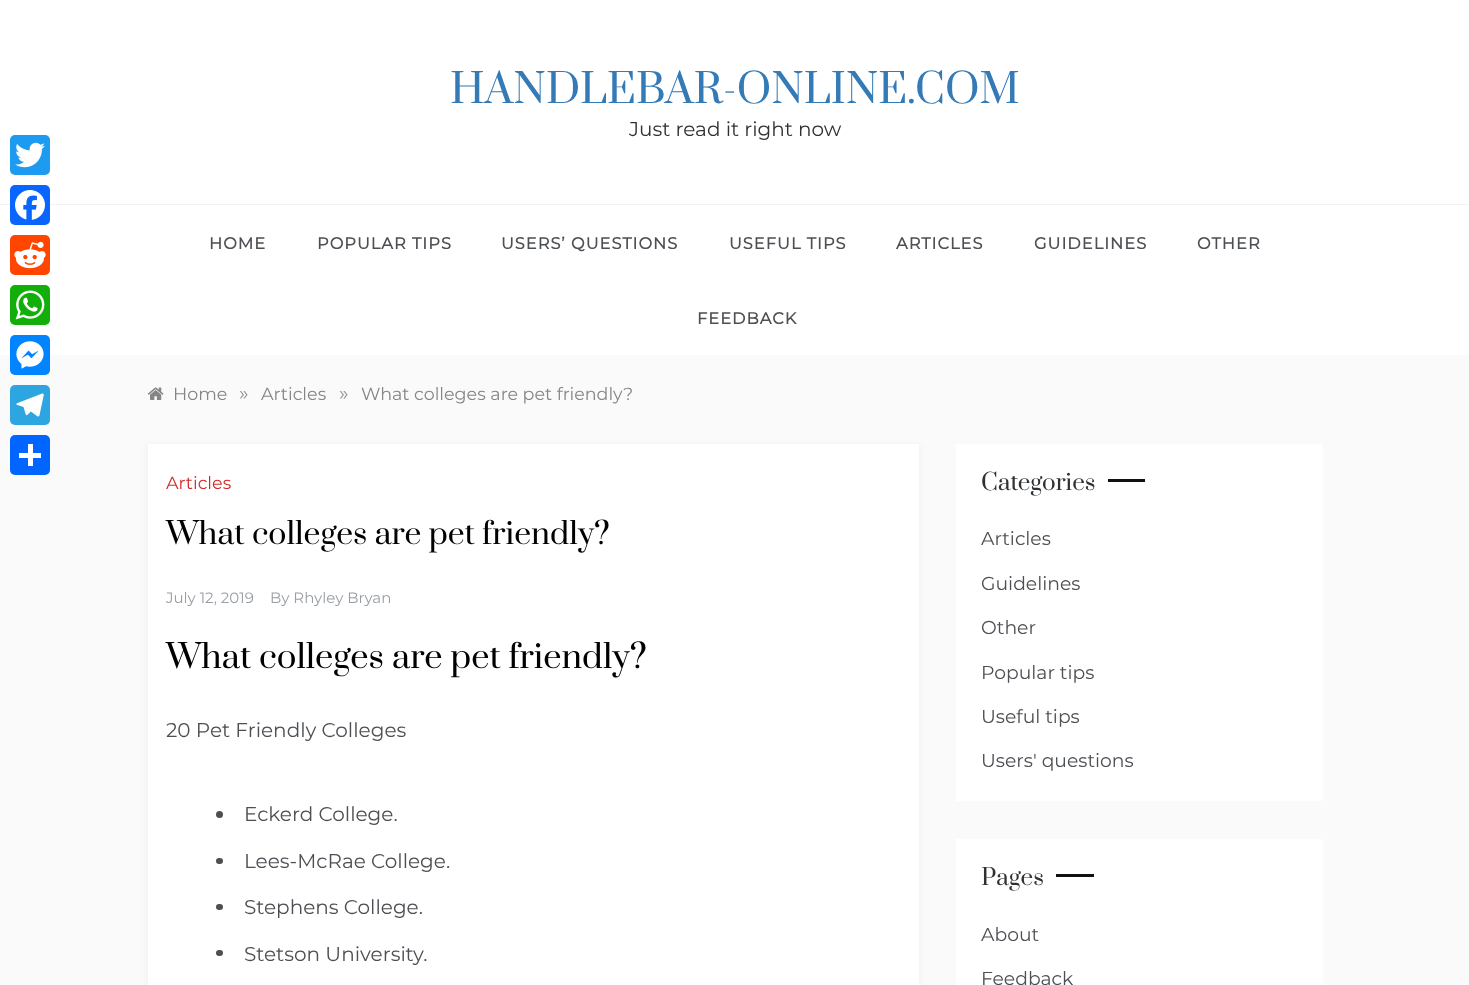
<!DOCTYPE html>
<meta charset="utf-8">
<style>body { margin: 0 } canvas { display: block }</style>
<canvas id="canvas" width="1469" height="985"></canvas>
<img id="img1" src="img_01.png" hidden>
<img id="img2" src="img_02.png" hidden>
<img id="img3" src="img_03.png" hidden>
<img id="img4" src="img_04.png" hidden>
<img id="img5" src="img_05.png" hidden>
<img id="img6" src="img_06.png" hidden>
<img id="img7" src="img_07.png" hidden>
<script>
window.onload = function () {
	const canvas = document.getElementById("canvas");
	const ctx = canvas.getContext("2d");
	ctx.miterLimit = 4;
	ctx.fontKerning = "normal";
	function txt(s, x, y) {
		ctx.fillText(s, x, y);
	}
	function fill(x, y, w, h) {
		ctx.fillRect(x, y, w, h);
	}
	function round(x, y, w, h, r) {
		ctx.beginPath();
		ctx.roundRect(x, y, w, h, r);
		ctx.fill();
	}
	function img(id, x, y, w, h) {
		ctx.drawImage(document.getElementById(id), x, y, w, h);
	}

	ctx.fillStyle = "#FAFAFA";
	fill(0, 0, 1469, 985);
	ctx.fillStyle = "#FFFFFF";
	fill(0, 0, 1469, 355);
	ctx.fillStyle = "#1D9BF0";
	round(10, 135, 40, 40, 5);
	img("img1", 15, 142, 30, 26);
	ctx.fillStyle = "#F2F2F2";
	fill(0, 204, 1469, 1);
	ctx.fillStyle = "#0866FF";
	round(10, 185, 40, 40, 5);
	img("img2", 15, 190, 30, 30);
	ctx.fillStyle = "#FF4500";
	round(10, 235, 40, 40, 5);
	img("img3", 14, 241, 32, 28);
	ctx.fillStyle = "#12AF0A";
	round(10, 285, 40, 40, 5);
	img("img4", 15, 290, 30, 30);
	ctx.fillStyle = "#0084FF";
	round(10, 335, 40, 40, 5);
	img("img5", 16, 341, 28, 28);
	ctx.fillStyle = "#2CA5E0";
	round(10, 385, 40, 40, 5);
	img("img6", 16, 393, 28, 24);
	ctx.fillStyle = "#0166FF";
	round(10, 435, 40, 40, 5);
	ctx.fillStyle = "#FFFFFF";
	fill(28, 444, 5, 22);
	fill(19, 453, 22, 5);
	img("img7", 147, 387, 17, 13);
	ctx.fillStyle = "rgba(0, 0, 1, 0.05)";
	ctx.filter = "blur(3px)";
	ctx.beginPath();
	ctx.rect(148, 445, 771, 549);
	ctx.fill();
	ctx.filter = "none";
	ctx.fillStyle = "#FFFFFF";
	fill(148, 444, 771, 541);
	ctx.fillStyle = "#4C4F53";
	ctx.beginPath();
	ctx.arc(219.5, 814.5, 3.5, 0, Math.PI * 2);
	ctx.fill();
	round(216, 858, 7, 6, 3);
	round(216, 904, 7, 6, 3);
	round(216, 950, 7, 6, 3);
	ctx.fillStyle = "#FFFFFF";
	fill(956, 444, 367, 357);
	ctx.fillStyle = "#111111";
	fill(1108, 479, 37, 3);
	ctx.fillStyle = "#FFFFFF";
	fill(956, 839, 367, 146);
	ctx.fillStyle = "#111111";
	fill(1056, 874, 38, 3);
	ctx.font = "40px Prata";
	ctx.fillStyle = "#337AB7";
	txt("HANDLEBAR-ONLINE.COM", 450, 103);
	ctx.font = "100 20px Montserrat";
	ctx.fillStyle = "#2F3235";
	txt("Just read it right now", 629, 136);
	ctx.letterSpacing = "1px";
	ctx.font = "bold 16.25px Montserrat";
	ctx.fillStyle = "#4C4F53";
	txt("HOME", 209, 249);
	txt("POPULAR TIPS", 317, 249);
	txt("USERS’ QUESTIONS", 501, 249);
	txt("USEFUL TIPS", 729, 249);
	txt("ARTICLES", 896, 249);
	txt("GUIDELINES", 1034, 249);
	txt("OTHER", 1197, 249);
	txt("FEEDBACK", 697, 324);
	ctx.letterSpacing = "0px";
	ctx.font = "100 17.5px Montserrat";
	ctx.fillStyle = "#858585";
	txt("Home", 173, 400);
	ctx.font = "100 20px Montserrat";
	ctx.fillStyle = "#8D97A1";
	txt("»", 239, 400);
	ctx.font = "100 17.5px Montserrat";
	ctx.fillStyle = "#858585";
	txt("Articles", 261, 400);
	ctx.font = "100 20px Montserrat";
	ctx.fillStyle = "#8D97A1";
	txt("»", 339, 400);
	ctx.font = "100 17.5px Montserrat";
	ctx.fillStyle = "#858585";
	txt("What colleges are pet friendly?", 361, 400);
	ctx.fillStyle = "#D42929";
	txt("Articles", 166, 489);
	ctx.font = "30px Prata";
	ctx.fillStyle = "#000000";
	txt("What colleges are pet friendly?", 166, 544);
	ctx.font = "100 15px Montserrat";
	ctx.fillStyle = "#989EA6";
	txt("July 12, 2019", 166, 603);
	txt("By Rhyley Bryan", 270, 603);
	ctx.font = "32.5px Prata";
	ctx.fillStyle = "#000000";
	txt("What colleges are pet friendly?", 166, 668);
	ctx.font = "100 20px Montserrat";
	ctx.fillStyle = "#4C4F53";
	txt("20 Pet Friendly Colleges", 166, 737);
	txt("Eckerd College.", 244, 821);
	txt("Lees-McRae College.", 244, 868);
	txt("Stephens College.", 244, 914);
	txt("Stetson University.", 244, 961);
	ctx.font = "22.5px Prata";
	ctx.fillStyle = "#2F3235";
	txt("Categories", 981, 490);
	ctx.font = "100 18.75px Montserrat";
	ctx.fillStyle = "#4C4F53";
	txt("Articles", 981, 545);
	txt("Guidelines", 981, 590);
	txt("Other", 981, 634);
	txt("Popular tips", 981, 679);
	txt("Useful tips", 981, 723);
	txt("Users' questions", 981, 767);
	ctx.font = "22.5px Prata";
	ctx.fillStyle = "#2F3235";
	txt("Pages", 981, 885);
	ctx.font = "100 18.75px Montserrat";
	ctx.fillStyle = "#4C4F53";
	txt("About", 981, 941);
	txt("Feedback", 981, 985);
};
</script>
